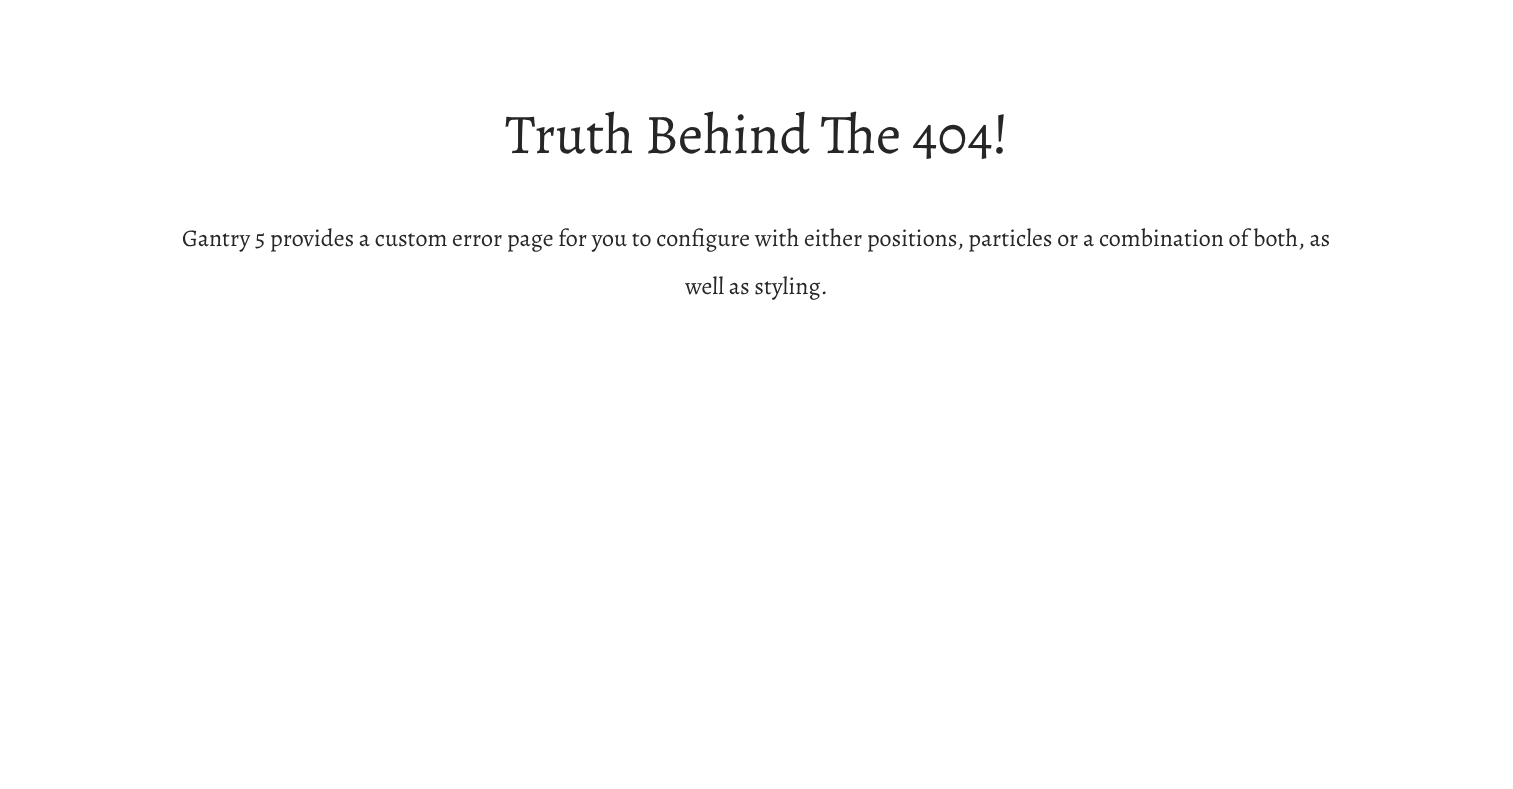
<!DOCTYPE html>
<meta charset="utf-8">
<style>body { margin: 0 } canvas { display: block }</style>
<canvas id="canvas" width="1513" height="789"></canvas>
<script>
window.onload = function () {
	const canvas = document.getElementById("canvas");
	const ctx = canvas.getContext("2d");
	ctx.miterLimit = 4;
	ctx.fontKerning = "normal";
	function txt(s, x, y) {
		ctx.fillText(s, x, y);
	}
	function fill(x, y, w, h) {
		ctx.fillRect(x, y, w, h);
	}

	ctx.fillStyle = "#FFFFFF";
	fill(0, 0, 1513, 789);
	ctx.font = "56px Alegreya";
	ctx.fillStyle = "#262626";
	txt("Truth Behind The 404!", 505, 153);
	ctx.font = "24px Alegreya";
	txt("Gantry 5 provides a custom error page for you to configure with either positions, particles or a combination of both, as", 182, 246);
	txt("well as styling.", 685, 294);
};
</script>
